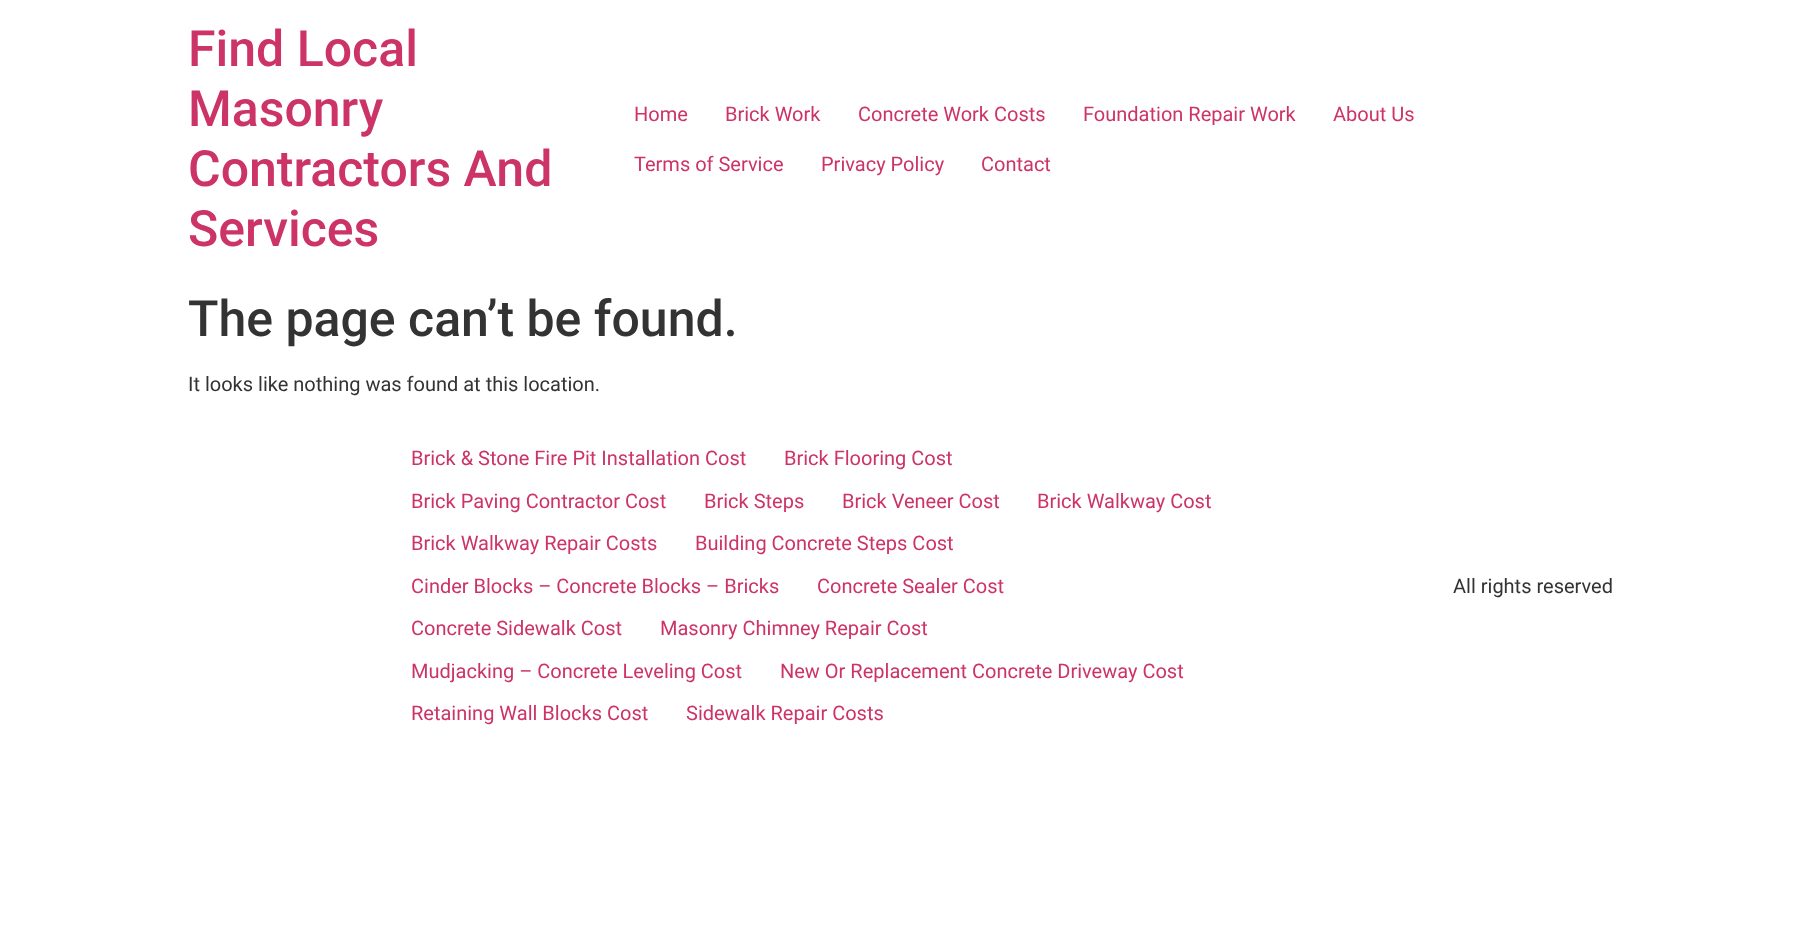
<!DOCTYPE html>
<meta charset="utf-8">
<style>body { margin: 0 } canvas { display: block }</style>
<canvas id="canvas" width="1800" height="927"></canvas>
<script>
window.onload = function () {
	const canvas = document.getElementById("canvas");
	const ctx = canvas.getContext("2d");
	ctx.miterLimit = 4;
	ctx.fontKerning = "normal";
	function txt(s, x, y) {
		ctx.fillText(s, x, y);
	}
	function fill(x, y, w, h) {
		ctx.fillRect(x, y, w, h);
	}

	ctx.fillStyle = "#FFFFFF";
	fill(0, 0, 1800, 927);
	ctx.font = "500 50px Roboto";
	ctx.fillStyle = "#CC3366";
	txt("Find Local", 188, 66);
	txt("Masonry", 188, 126);
	txt("Contractors And", 188, 186);
	txt("Services", 188, 246);
	ctx.font = "20px Roboto";
	txt("Home", 634, 121);
	txt("Brick Work", 725, 121);
	txt("Concrete Work Costs", 858, 121);
	txt("Foundation Repair Work", 1083, 121);
	txt("About Us", 1333, 121);
	txt("Terms of Service", 634, 171);
	txt("Privacy Policy", 821, 171);
	txt("Contact", 981, 171);
	ctx.font = "500 50px Roboto";
	ctx.fillStyle = "#333333";
	txt("The page can’t be found.", 188, 336);
	ctx.font = "20px Roboto";
	txt("It looks like nothing was found at this location.", 188, 391);
	ctx.fillStyle = "#CC3366";
	txt("Brick & Stone Fire Pit Installation Cost", 411, 465);
	txt("Brick Flooring Cost", 784, 465);
	txt("Brick Paving Contractor Cost", 411, 508);
	txt("Brick Steps", 704, 508);
	txt("Brick Veneer Cost", 842, 508);
	txt("Brick Walkway Cost", 1037, 508);
	txt("Brick Walkway Repair Costs", 411, 550);
	txt("Building Concrete Steps Cost", 695, 550);
	txt("Cinder Blocks – Concrete Blocks – Bricks", 411, 593);
	txt("Concrete Sealer Cost", 817, 593);
	txt("Concrete Sidewalk Cost", 411, 635);
	txt("Masonry Chimney Repair Cost", 660, 635);
	txt("Mudjacking – Concrete Leveling Cost", 411, 678);
	txt("New Or Replacement Concrete Driveway Cost", 780, 678);
	txt("Retaining Wall Blocks Cost", 411, 720);
	txt("Sidewalk Repair Costs", 686, 720);
	ctx.fillStyle = "#333333";
	txt("All rights reserved", 1453, 593);
};
</script>
